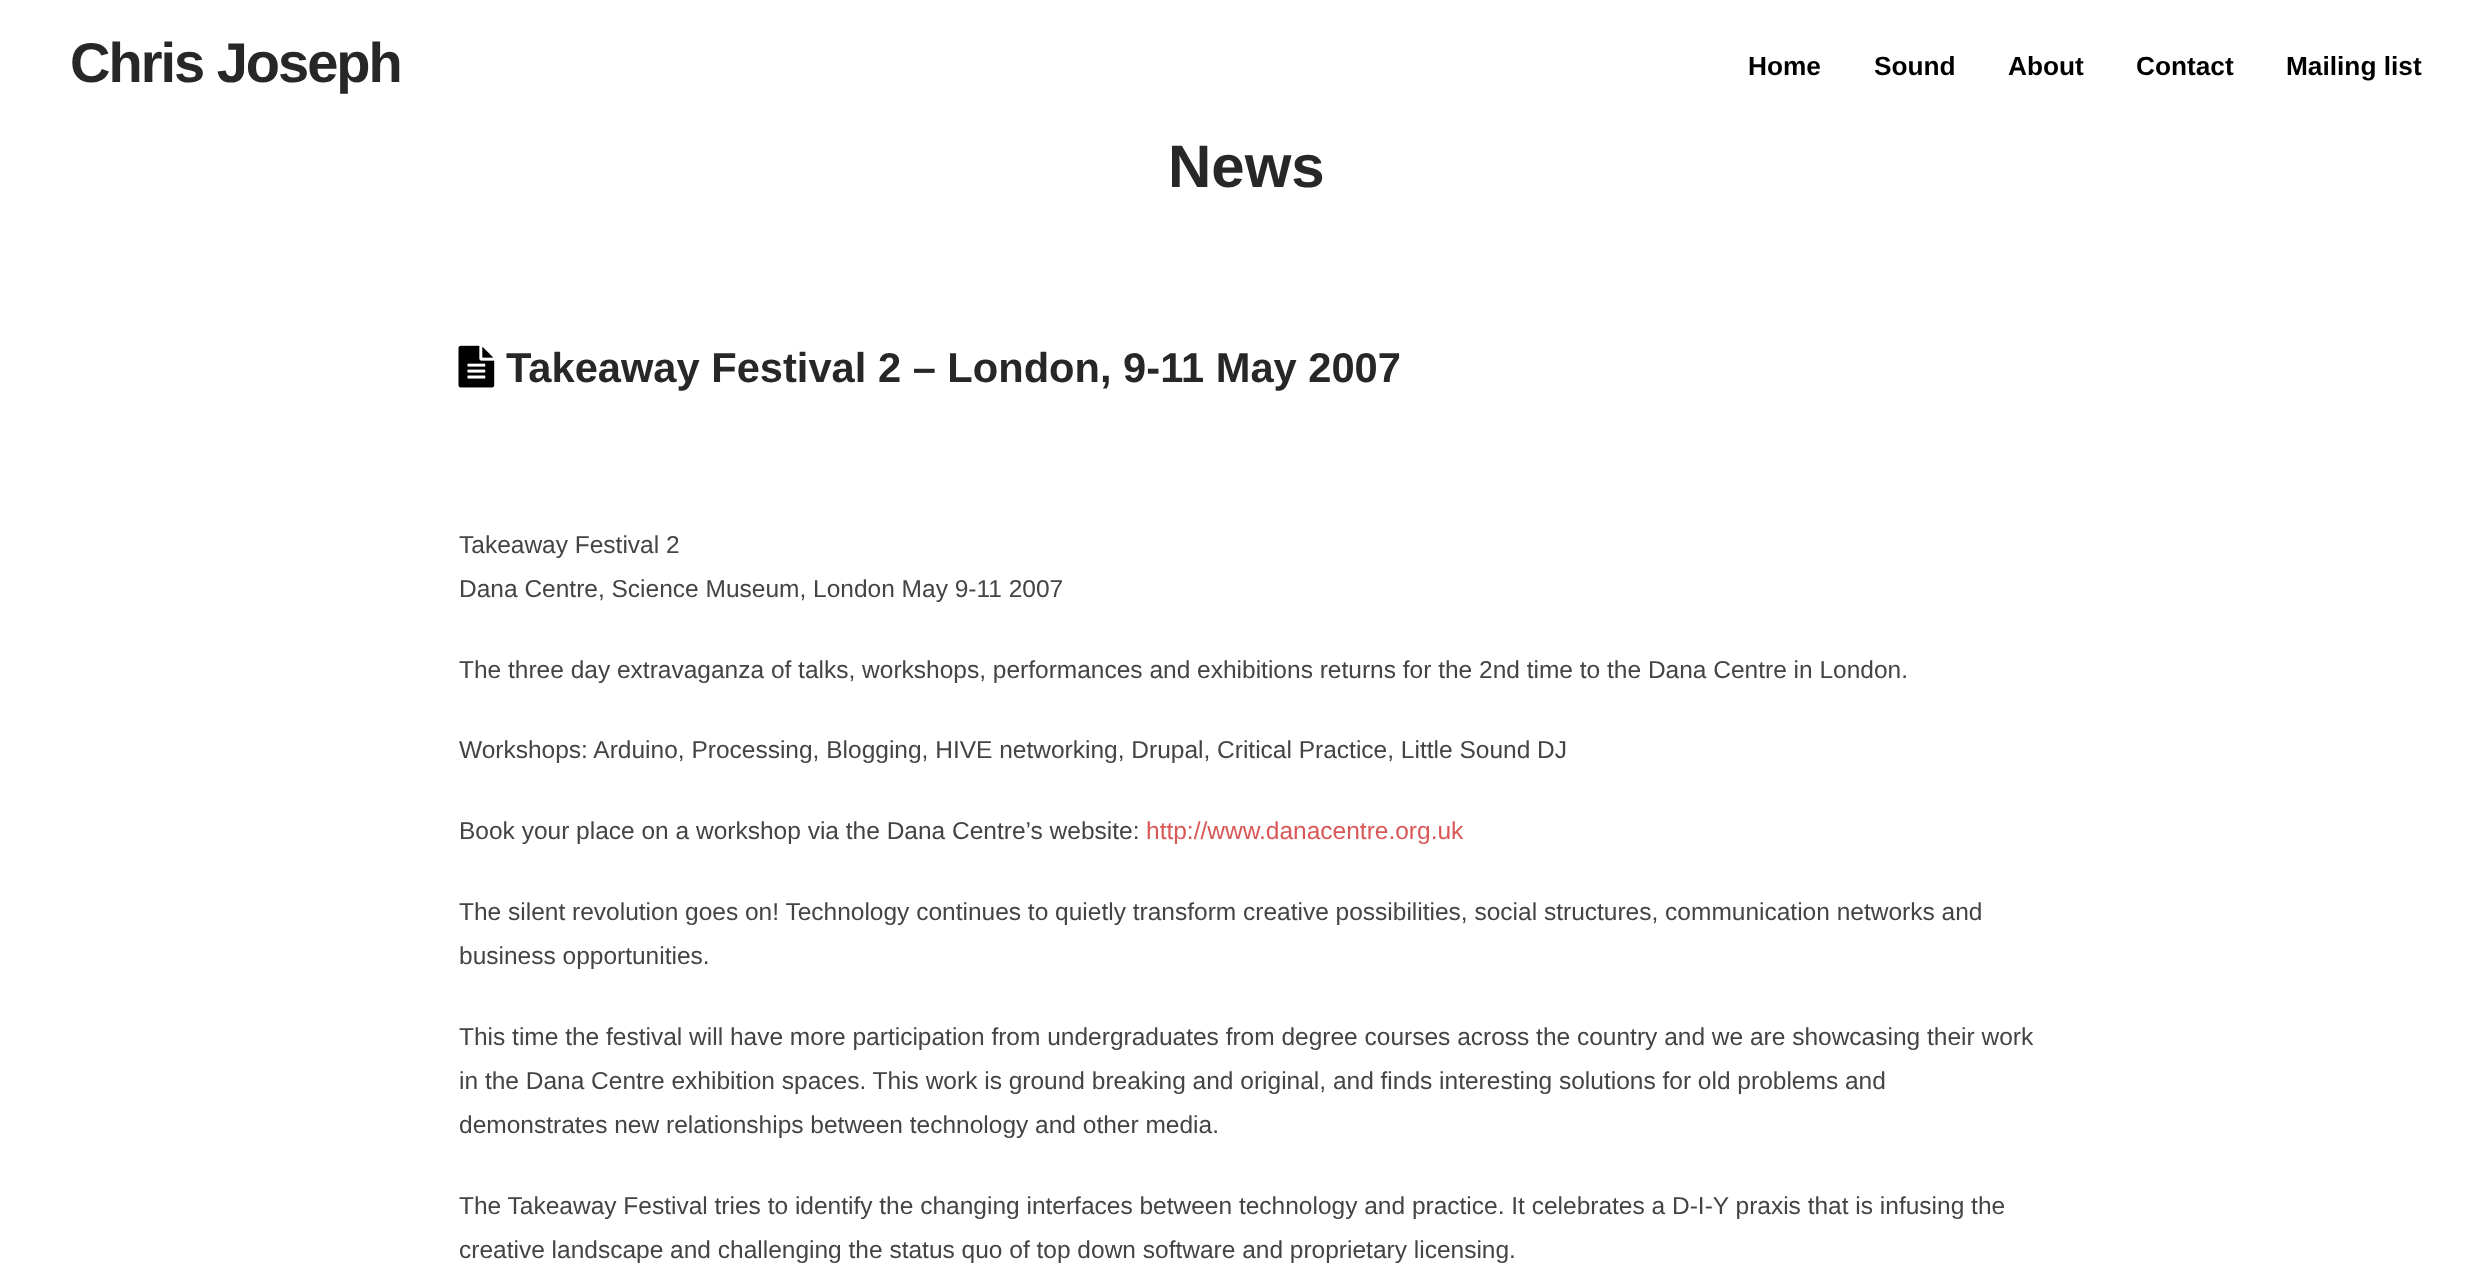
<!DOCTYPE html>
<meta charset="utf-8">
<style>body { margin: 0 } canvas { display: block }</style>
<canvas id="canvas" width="2492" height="1263"></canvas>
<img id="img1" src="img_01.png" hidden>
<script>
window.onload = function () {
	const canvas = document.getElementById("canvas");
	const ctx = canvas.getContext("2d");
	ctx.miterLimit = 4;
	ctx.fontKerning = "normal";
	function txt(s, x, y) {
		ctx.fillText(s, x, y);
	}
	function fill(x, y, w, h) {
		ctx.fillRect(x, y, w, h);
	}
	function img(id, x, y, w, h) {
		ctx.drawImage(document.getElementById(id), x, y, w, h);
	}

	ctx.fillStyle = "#FFFFFF";
	fill(0, 0, 2492, 1263);
	img("img1", 458, 345, 37, 43);
	ctx.letterSpacing = "-2px";
	ctx.font = "bold 56px Liberation Sans";
	ctx.fillStyle = "#272727";
	txt("Chris Joseph", 70, 82);
	ctx.letterSpacing = "0px";
	ctx.font = "bold 26.25px Liberation Sans";
	ctx.fillStyle = "#000000";
	txt("Home", 1748, 75);
	txt("Sound", 1874, 75);
	txt("About", 2008, 75);
	txt("Contact", 2136, 75);
	txt("Mailing list", 2286, 75);
	ctx.font = "bold 60px Liberation Sans";
	ctx.fillStyle = "#272727";
	txt("News", 1168, 187);
	ctx.font = "bold 41.65px Liberation Sans";
	txt("Takeaway Festival 2 – London, 9-11 May 2007", 506, 382);
	ctx.font = "24.5px Liberation Sans";
	ctx.fillStyle = "#444444";
	txt("Takeaway Festival 2", 459, 553);
	txt("Dana Centre, Science Museum, London May 9-11 2007", 459, 597);
	txt("The three day extravaganza of talks, workshops, performances and exhibitions returns for the 2nd time to the Dana Centre in London.", 459, 678);
	txt("Workshops: Arduino, Processing, Blogging, HIVE networking, Drupal, Critical Practice, Little Sound DJ", 459, 758);
	txt("Book your place on a workshop via the Dana Centre’s website:", 459, 839);
	ctx.fillStyle = "#D95757";
	txt("http://www.danacentre.org.uk", 1146, 839);
	ctx.fillStyle = "#444444";
	txt("The silent revolution goes on! Technology continues to quietly transform creative possibilities, social structures, communication networks and", 459, 920);
	txt("business opportunities.", 459, 964);
	txt("This time the festival will have more participation from undergraduates from degree courses across the country and we are showcasing their work", 459, 1045);
	txt("in the Dana Centre exhibition spaces. This work is ground breaking and original, and finds interesting solutions for old problems and", 459, 1089);
	txt("demonstrates new relationships between technology and other media.", 459, 1133);
	txt("The Takeaway Festival tries to identify the changing interfaces between technology and practice. It celebrates a D-I-Y praxis that is infusing the", 459, 1214);
	txt("creative landscape and challenging the status quo of top down software and proprietary licensing.", 459, 1258);
};
</script>
